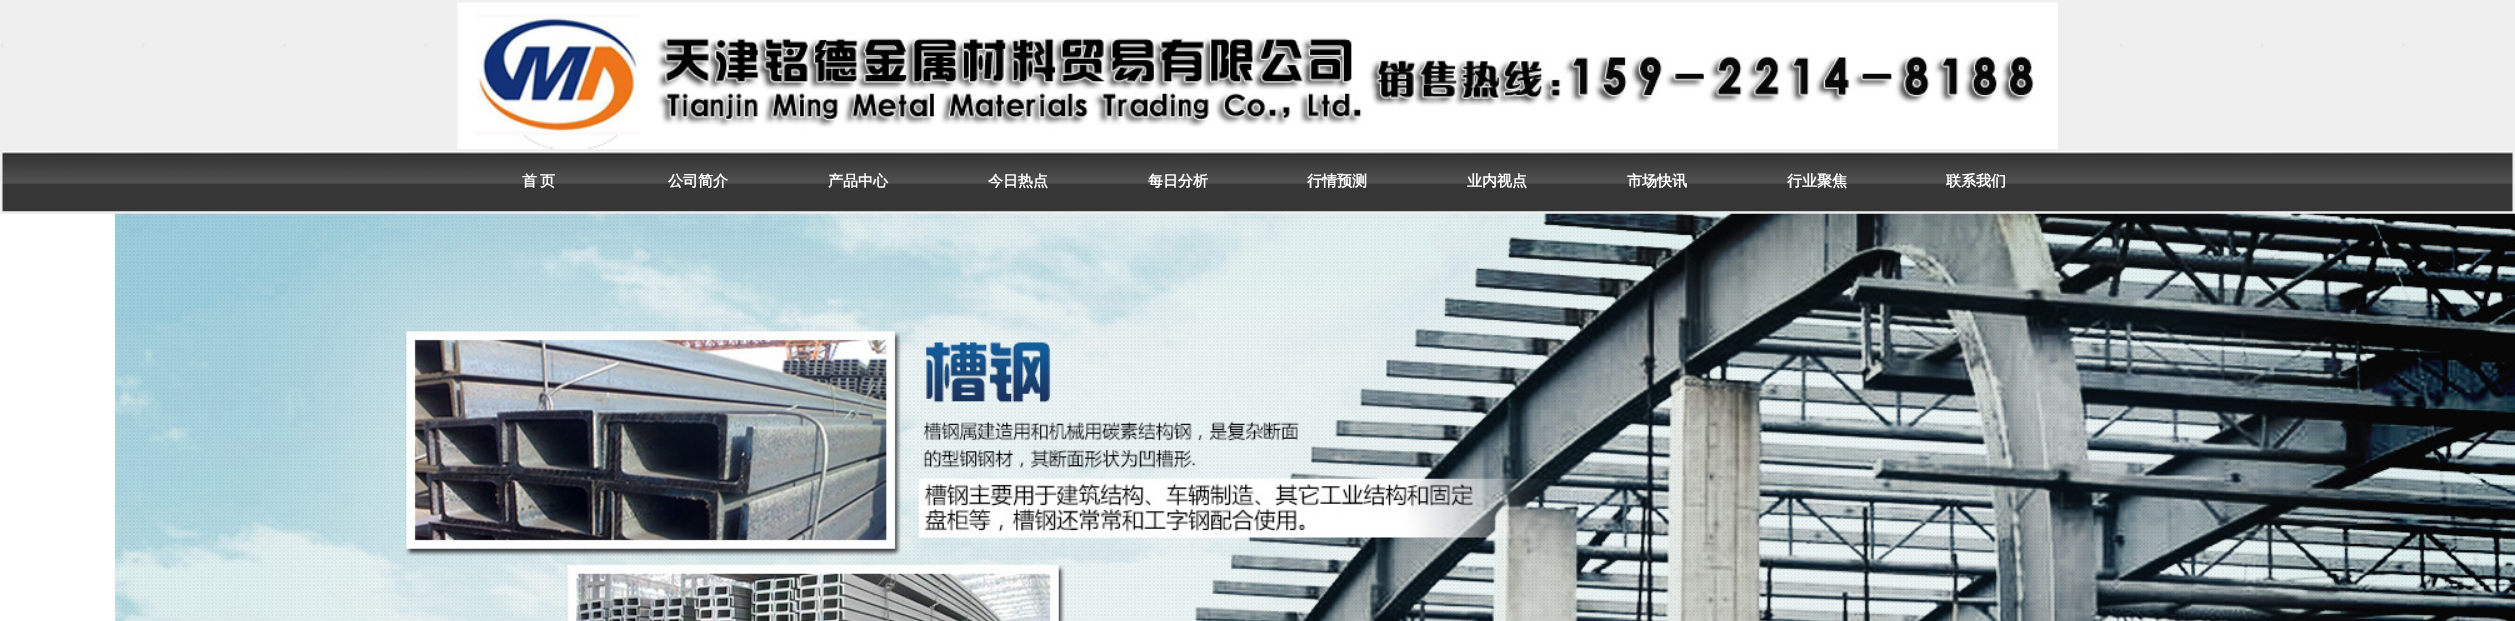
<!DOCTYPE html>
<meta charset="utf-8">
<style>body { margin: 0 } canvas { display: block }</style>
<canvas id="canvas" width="2515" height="621"></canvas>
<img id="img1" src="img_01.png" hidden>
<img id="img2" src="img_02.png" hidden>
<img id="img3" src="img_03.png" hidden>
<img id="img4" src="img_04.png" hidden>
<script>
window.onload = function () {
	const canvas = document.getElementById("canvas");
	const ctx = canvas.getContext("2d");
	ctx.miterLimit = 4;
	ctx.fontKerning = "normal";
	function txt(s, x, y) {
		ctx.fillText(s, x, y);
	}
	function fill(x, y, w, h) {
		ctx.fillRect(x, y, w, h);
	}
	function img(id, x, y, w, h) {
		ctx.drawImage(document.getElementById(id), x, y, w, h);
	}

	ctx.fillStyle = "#FFFFFF";
	fill(0, 0, 2515, 621);
	img("img1", 0, 0, 2515, 214);
	fill(458, 3, 1600, 146);
	img("img2", 457, 2, 1601, 147);
	img("img3", 2, 151, 2511, 61);
	img("img4", 115, 213, 2400, 408);
	ctx.font = "bold 15px WenQuanYi Zen Hei";
	txt("首", 522, 186);
	txt("页", 540, 186);
	txt("公司简介", 668, 186);
	txt("产品中心", 828, 186);
	txt("今日热点", 988, 186);
	txt("每日分析", 1148, 186);
	txt("行情预测", 1307, 186);
	txt("业内视点", 1467, 186);
	txt("市场快讯", 1627, 186);
	txt("行业聚焦", 1787, 186);
	txt("联系我们", 1946, 186);
};
</script>
